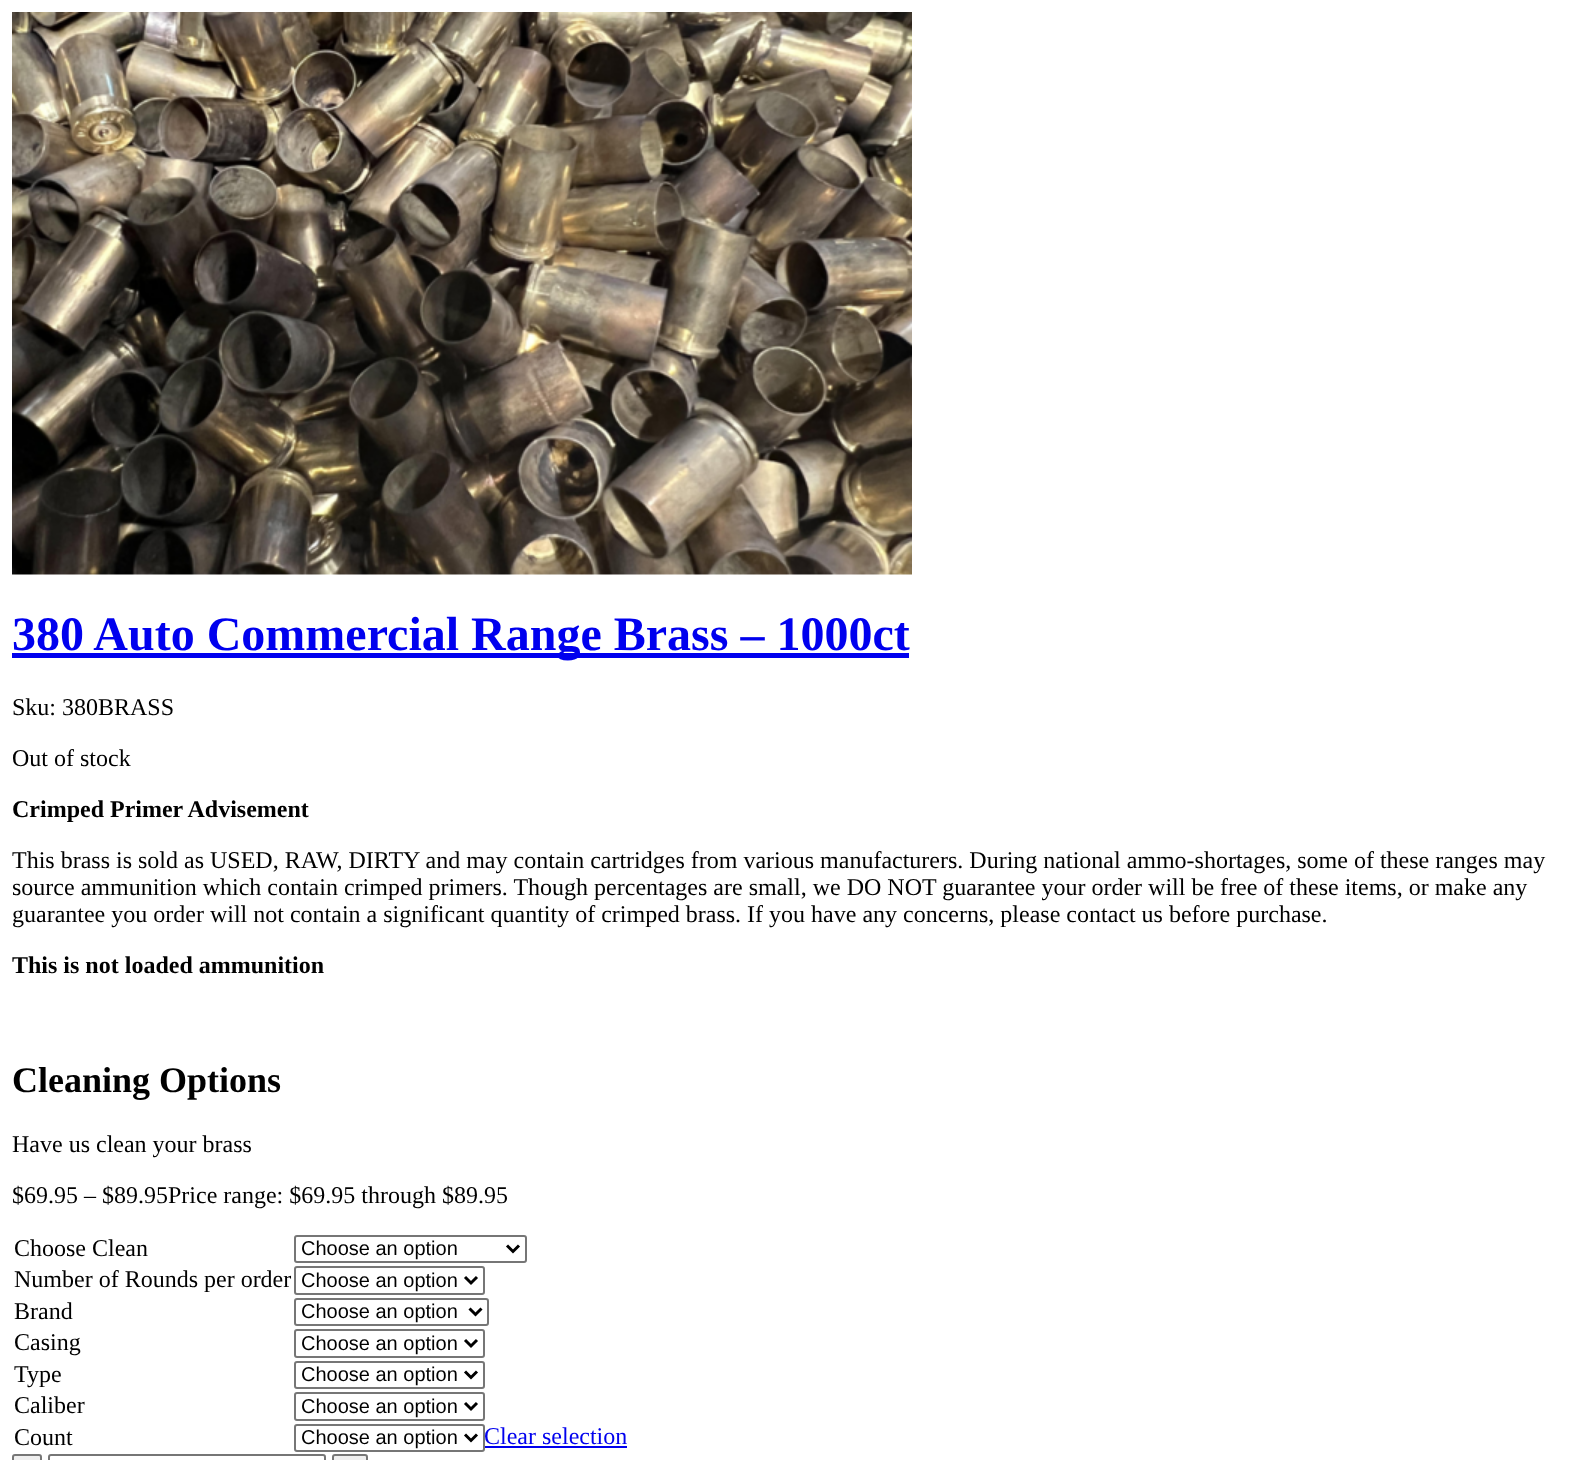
<!DOCTYPE html>
<meta charset="utf-8">
<style>body { margin: 0 } canvas { display: block }</style>
<canvas id="canvas" width="1596" height="1460"></canvas>
<img id="img1" src="img_01.png" hidden>
<script>
window.onload = function () {
	const canvas = document.getElementById("canvas");
	const ctx = canvas.getContext("2d");
	ctx.miterLimit = 4;
	ctx.fontKerning = "normal";
	function txt(s, x, y) {
		ctx.fillText(s, x, y);
	}
	function fill(x, y, w, h) {
		ctx.fillRect(x, y, w, h);
	}
	function img(id, x, y, w, h) {
		ctx.drawImage(document.getElementById(id), x, y, w, h);
	}

	ctx.fillStyle = "#FFFFFF";
	fill(0, 0, 1596, 1460);
	img("img1", 12, 12, 900, 563);
	ctx.fillStyle = "#0000EE";
	fill(12, 653, 897, 5);
	ctx.beginPath();
	ctx.roundRect(295, 1236, 231, 26, 2);
	ctx.strokeStyle = "#767676";
	ctx.lineWidth = 2;
	ctx.stroke();
	ctx.beginPath();
	ctx.moveTo(507, 1245.5);
	ctx.lineTo(513, 1251.5);
	ctx.lineTo(519, 1245.5);
	ctx.strokeStyle = "#000000";
	ctx.lineWidth = 3;
	ctx.stroke();
	ctx.beginPath();
	ctx.roundRect(295, 1267, 189, 27, 2);
	ctx.strokeStyle = "#767676";
	ctx.lineWidth = 2;
	ctx.stroke();
	ctx.beginPath();
	ctx.moveTo(465, 1277);
	ctx.lineTo(471, 1283);
	ctx.lineTo(477, 1277);
	ctx.strokeStyle = "#000000";
	ctx.lineWidth = 3;
	ctx.stroke();
	ctx.beginPath();
	ctx.roundRect(295, 1299, 193, 26, 2);
	ctx.strokeStyle = "#767676";
	ctx.lineWidth = 2;
	ctx.stroke();
	ctx.beginPath();
	ctx.moveTo(469.5, 1308.5);
	ctx.lineTo(475.5, 1314.5);
	ctx.lineTo(481.5, 1308.5);
	ctx.strokeStyle = "#000000";
	ctx.lineWidth = 3;
	ctx.stroke();
	ctx.beginPath();
	ctx.roundRect(295, 1330, 189, 27, 2);
	ctx.strokeStyle = "#767676";
	ctx.lineWidth = 2;
	ctx.stroke();
	ctx.beginPath();
	ctx.moveTo(465, 1340);
	ctx.lineTo(471, 1346);
	ctx.lineTo(477, 1340);
	ctx.strokeStyle = "#000000";
	ctx.lineWidth = 3;
	ctx.stroke();
	ctx.beginPath();
	ctx.roundRect(295, 1362, 189, 26, 2);
	ctx.strokeStyle = "#767676";
	ctx.lineWidth = 2;
	ctx.stroke();
	ctx.beginPath();
	ctx.moveTo(465, 1371.5);
	ctx.lineTo(471, 1377.5);
	ctx.lineTo(477, 1371.5);
	ctx.strokeStyle = "#000000";
	ctx.lineWidth = 3;
	ctx.stroke();
	ctx.beginPath();
	ctx.roundRect(295, 1393, 189, 27, 2);
	ctx.strokeStyle = "#767676";
	ctx.lineWidth = 2;
	ctx.stroke();
	ctx.beginPath();
	ctx.moveTo(465, 1403);
	ctx.lineTo(471, 1409);
	ctx.lineTo(477, 1403);
	ctx.strokeStyle = "#000000";
	ctx.lineWidth = 3;
	ctx.stroke();
	ctx.beginPath();
	ctx.roundRect(295, 1425, 189, 26, 2);
	ctx.strokeStyle = "#767676";
	ctx.lineWidth = 2;
	ctx.stroke();
	ctx.beginPath();
	ctx.moveTo(465, 1434.5);
	ctx.lineTo(471, 1440.5);
	ctx.lineTo(477, 1434.5);
	ctx.strokeStyle = "#000000";
	ctx.lineWidth = 3;
	ctx.stroke();
	fill(485, 1446, 142, 2);
	ctx.fillStyle = "#EFEFEF";
	ctx.beginPath();
	ctx.roundRect(13, 1455, 28, 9, 2);
	ctx.fill();
	ctx.strokeStyle = "#767676";
	ctx.lineWidth = 2;
	ctx.stroke();
	ctx.beginPath();
	ctx.roundRect(49, 1455, 276, 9, 2);
	ctx.stroke();
	ctx.beginPath();
	ctx.roundRect(333, 1455, 34, 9, 2);
	ctx.fill();
	ctx.stroke();
	ctx.font = "bold 48px Liberation Serif";
	ctx.fillStyle = "#0000EE";
	txt("380 Auto Commercial Range Brass – 1000ct", 12, 650);
	ctx.font = "24px Liberation Serif";
	ctx.fillStyle = "#000000";
	txt("Sku: 380BRASS", 12, 715);
	txt("Out of stock", 12, 766);
	ctx.font = "bold 24px Liberation Serif";
	txt("Crimped Primer Advisement", 12, 817);
	ctx.font = "24px Liberation Serif";
	txt("This brass is sold as USED, RAW, DIRTY and may contain cartridges from various manufacturers. During national ammo-shortages, some of these ranges may", 12, 868);
	txt("source ammunition which contain crimped primers. Though percentages are small, we DO NOT guarantee your order will be free of these items, or make any", 12, 895);
	txt("guarantee you order will not contain a significant quantity of crimped brass. If you have any concerns, please contact us before purchase.", 12, 922);
	ctx.font = "bold 24px Liberation Serif";
	txt("This is not loaded ammunition", 12, 973);
	ctx.font = "bold 36px Liberation Serif";
	txt("Cleaning Options", 12, 1092);
	ctx.font = "24px Liberation Serif";
	txt("Have us clean your brass", 12, 1152);
	txt("$69.95 – $89.95Price range: $69.95 through $89.95", 12, 1203);
	txt("Choose Clean", 14, 1256);
	ctx.font = "20px Liberation Sans";
	txt("Choose an option", 301, 1255);
	ctx.font = "24px Liberation Serif";
	txt("Number of Rounds per order", 14, 1287);
	ctx.font = "20px Liberation Sans";
	txt("Choose an option", 301, 1287);
	ctx.font = "24px Liberation Serif";
	txt("Brand", 14, 1319);
	ctx.font = "20px Liberation Sans";
	txt("Choose an option", 301, 1318);
	ctx.font = "24px Liberation Serif";
	txt("Casing", 14, 1350);
	ctx.font = "20px Liberation Sans";
	txt("Choose an option", 301, 1350);
	ctx.font = "24px Liberation Serif";
	txt("Type", 14, 1382);
	ctx.font = "20px Liberation Sans";
	txt("Choose an option", 301, 1381);
	ctx.font = "24px Liberation Serif";
	txt("Caliber", 14, 1413);
	ctx.font = "20px Liberation Sans";
	txt("Choose an option", 301, 1413);
	ctx.font = "24px Liberation Serif";
	txt("Count", 14, 1445);
	ctx.font = "20px Liberation Sans";
	txt("Choose an option", 301, 1444);
	ctx.font = "24px Liberation Serif";
	ctx.fillStyle = "#0000EE";
	txt("Clear selection", 484, 1444);
};
</script>
